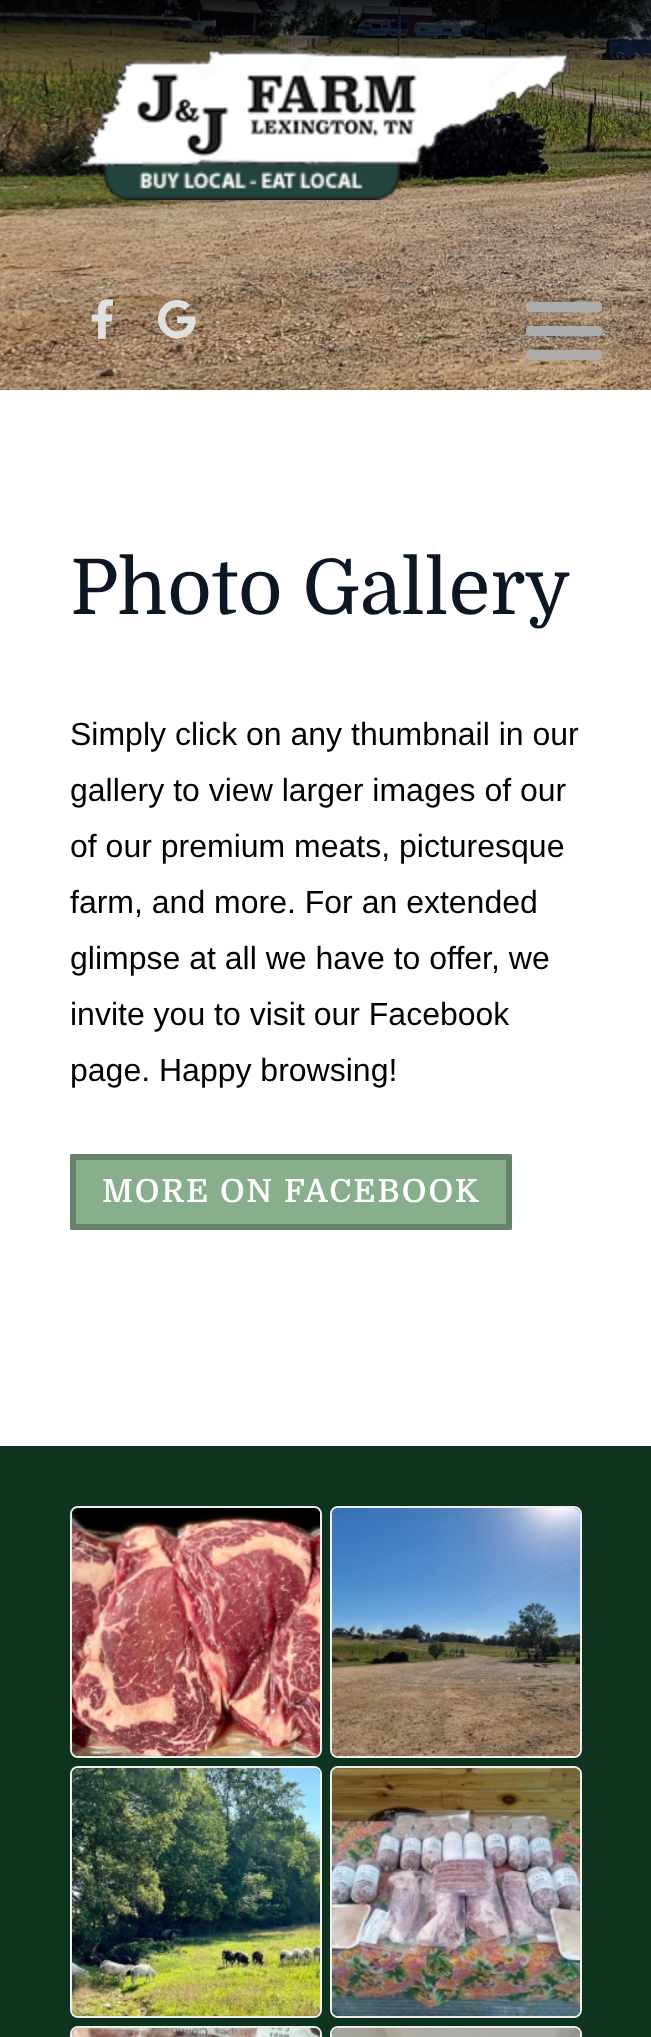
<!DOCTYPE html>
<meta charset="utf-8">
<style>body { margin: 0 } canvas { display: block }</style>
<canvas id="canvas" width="651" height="2037"></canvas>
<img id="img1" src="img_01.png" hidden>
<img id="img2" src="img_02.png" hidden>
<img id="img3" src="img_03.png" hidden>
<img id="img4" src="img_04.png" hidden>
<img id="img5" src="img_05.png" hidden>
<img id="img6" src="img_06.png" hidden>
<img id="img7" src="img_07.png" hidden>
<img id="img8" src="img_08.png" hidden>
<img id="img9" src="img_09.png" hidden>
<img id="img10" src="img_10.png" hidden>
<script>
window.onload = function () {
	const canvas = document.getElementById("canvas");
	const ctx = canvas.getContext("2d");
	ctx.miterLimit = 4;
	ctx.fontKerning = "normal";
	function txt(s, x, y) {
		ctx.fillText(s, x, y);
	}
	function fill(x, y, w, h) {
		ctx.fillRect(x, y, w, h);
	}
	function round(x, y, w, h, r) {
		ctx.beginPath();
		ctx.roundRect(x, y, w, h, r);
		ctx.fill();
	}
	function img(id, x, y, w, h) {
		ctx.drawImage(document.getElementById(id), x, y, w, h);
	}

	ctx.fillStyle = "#FFFFFF";
	fill(0, 0, 651, 2037);
	img("img1", 0, 0, 651, 390);
	img("img2", 80, 50, 490, 150);
	img("img3", 91, 299, 22, 40);
	img("img4", 158, 300, 38, 39);
	ctx.fillStyle = "#ADADAD";
	round(526, 326, 76, 10, 4);
	round(526, 302, 76, 10, 4);
	round(526, 350, 76, 10, 4);
	ctx.fillStyle = "#87AF8B";
	round(70, 1154, 442, 76, 2);
	ctx.beginPath();
	ctx.moveTo(73, 1157);
	ctx.lineTo(509, 1157);
	ctx.lineTo(509, 1227);
	ctx.lineTo(73, 1227);
	ctx.closePath();
	ctx.strokeStyle = "rgba(0, 0, 0, 0.25)";
	ctx.lineWidth = 6;
	ctx.stroke();
	ctx.fillStyle = "#0E331F";
	fill(0, 1446, 651, 591);
	ctx.beginPath();
	ctx.roundRect(71, 1507, 250, 250, 7);
	ctx.strokeStyle = "#EEEEEE";
	ctx.lineWidth = 2;
	ctx.stroke();
	img("img5", 72, 1508, 248, 248);
	ctx.beginPath();
	ctx.roundRect(331, 1507, 250, 250, 7);
	ctx.stroke();
	img("img6", 332, 1508, 248, 248);
	ctx.beginPath();
	ctx.roundRect(71, 1767, 250, 250, 7);
	ctx.stroke();
	img("img7", 72, 1768, 248, 248);
	ctx.beginPath();
	ctx.roundRect(331, 1767, 250, 250, 7);
	ctx.stroke();
	img("img8", 332, 1768, 248, 248);
	ctx.beginPath();
	ctx.roundRect(71, 2027, 250, 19, 7);
	ctx.stroke();
	img("img9", 72, 2028, 248, 9);
	ctx.beginPath();
	ctx.roundRect(331, 2027, 250, 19, 7);
	ctx.stroke();
	img("img10", 332, 2028, 248, 9);
	ctx.font = "76.75px Domine";
	ctx.fillStyle = "#0D1724";
	txt("Photo Gallery", 70, 614);
	ctx.font = "32px Liberation Sans";
	ctx.fillStyle = "#000000";
	txt("Simply click on any thumbnail in our", 70, 745);
	txt("gallery to view larger images of our", 70, 801);
	txt("of our premium meats, picturesque", 70, 857);
	txt("farm, and more. For an extended", 70, 913);
	txt("glimpse at all we have to offer, we", 70, 969);
	txt("invite you to visit our Facebook", 70, 1025);
	txt("page. Happy browsing!", 70, 1081);
	ctx.letterSpacing = "2px";
	ctx.font = "600 32px Domine";
	ctx.fillStyle = "#FFFFFF";
	txt("MORE ON FACEBOOK", 102, 1202);
};
</script>
